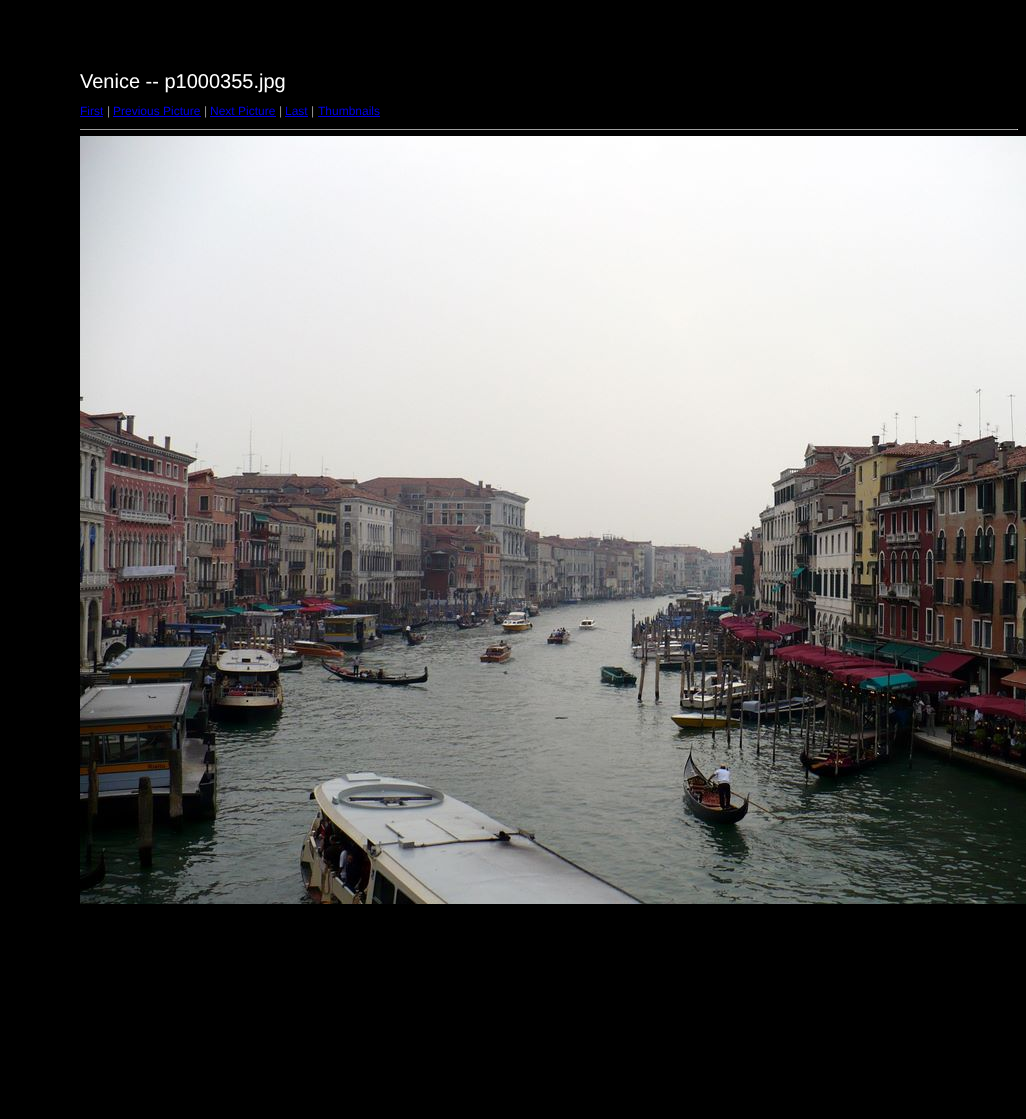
<!DOCTYPE html>
<meta charset="utf-8">
<style>body { margin: 0 } canvas { display: block }</style>
<canvas id="canvas" width="1026" height="1119"></canvas>
<img id="img1" src="img_01.png" hidden>
<script>
window.onload = function () {
	const canvas = document.getElementById("canvas");
	const ctx = canvas.getContext("2d");
	ctx.miterLimit = 4;
	ctx.fontKerning = "normal";
	function txt(s, x, y) {
		ctx.fillText(s, x, y);
	}
	function fill(x, y, w, h) {
		ctx.fillRect(x, y, w, h);
	}
	function img(id, x, y, w, h) {
		ctx.drawImage(document.getElementById(id), x, y, w, h);
	}

	ctx.fillStyle = "#000000";
	fill(0, 0, 1026, 1119);
	ctx.fillStyle = "#0000EE";
	fill(80, 116, 23, 1);
	fill(113, 116, 88, 1);
	fill(210, 116, 66, 1);
	fill(285, 116, 23, 1);
	fill(318, 116, 62, 1);
	ctx.fillStyle = "#9F9F9F";
	fill(80, 129, 938, 1);
	ctx.fillStyle = "#EEEEEE";
	fill(1017, 129, 1, 1);
	img("img1", 80, 136, 946, 768);
	ctx.font = "20px Liberation Sans";
	ctx.fillStyle = "#FFFFFF";
	txt("Venice -- p1000355.jpg", 80, 88);
	ctx.font = "12px Liberation Sans";
	ctx.fillStyle = "#0000EE";
	txt("First", 80, 115);
	ctx.fillStyle = "#999999";
	txt("|", 107, 115);
	ctx.fillStyle = "#0000EE";
	txt("Previous Picture", 113, 115);
	ctx.fillStyle = "#999999";
	txt("|", 204, 115);
	ctx.fillStyle = "#0000EE";
	txt("Next Picture", 210, 115);
	ctx.fillStyle = "#999999";
	txt("|", 279, 115);
	ctx.fillStyle = "#0000EE";
	txt("Last", 285, 115);
	ctx.fillStyle = "#999999";
	txt("|", 311, 115);
	ctx.fillStyle = "#0000EE";
	txt("Thumbnails", 318, 115);
};
</script>
